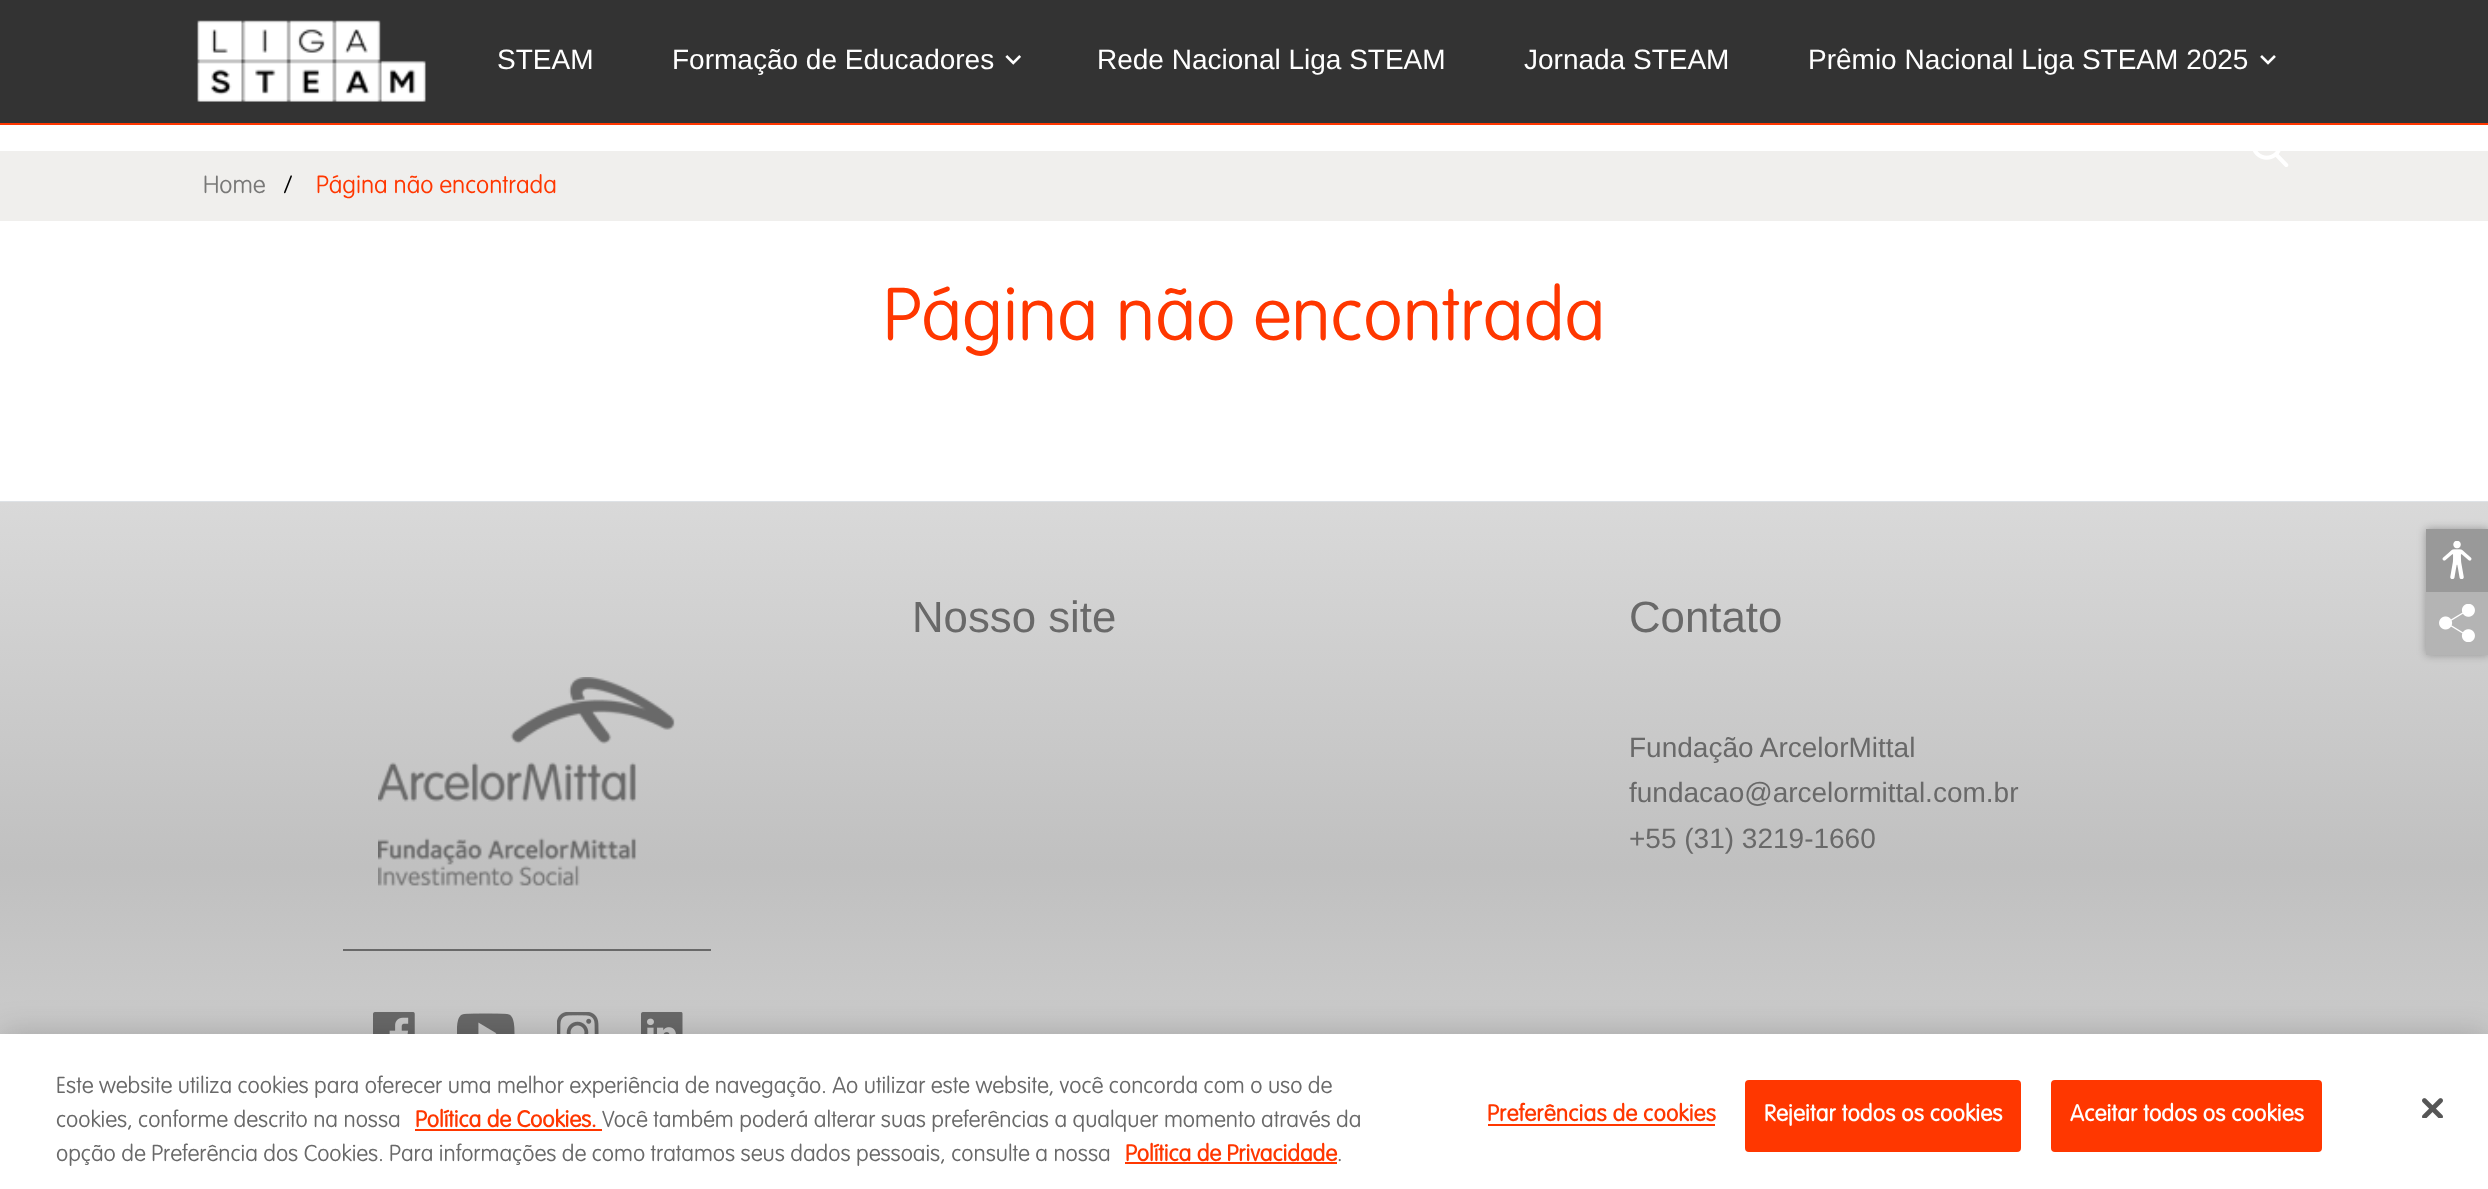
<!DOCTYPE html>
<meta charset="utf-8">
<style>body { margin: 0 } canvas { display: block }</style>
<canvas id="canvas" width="2488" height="1189"></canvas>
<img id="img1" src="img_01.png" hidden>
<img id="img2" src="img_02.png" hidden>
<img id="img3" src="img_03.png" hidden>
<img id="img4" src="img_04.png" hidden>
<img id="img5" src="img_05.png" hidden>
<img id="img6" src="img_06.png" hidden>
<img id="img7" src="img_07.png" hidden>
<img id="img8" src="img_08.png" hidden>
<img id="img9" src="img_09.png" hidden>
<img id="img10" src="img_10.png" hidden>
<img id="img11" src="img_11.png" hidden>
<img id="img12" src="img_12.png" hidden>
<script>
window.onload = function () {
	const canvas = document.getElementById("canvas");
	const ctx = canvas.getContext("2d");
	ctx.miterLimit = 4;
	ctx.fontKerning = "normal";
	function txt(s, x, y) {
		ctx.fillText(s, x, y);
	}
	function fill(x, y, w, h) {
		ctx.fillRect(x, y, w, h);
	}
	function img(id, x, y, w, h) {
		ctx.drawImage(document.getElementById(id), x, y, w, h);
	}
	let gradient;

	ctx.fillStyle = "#FFFFFF";
	fill(0, 0, 2488, 1189);
	ctx.fillStyle = "#333333";
	fill(0, 0, 2488, 123);
	ctx.fillStyle = "#FF3700";
	fill(0, 123, 2488, 2);
	img("img1", 197, 20, 229, 82);
	img("img2", 1005, 55, 16, 10);
	img("img3", 2260, 55, 16, 10);
	ctx.fillStyle = "#F0EFED";
	fill(0, 151, 2488, 70);
	img("img4", 2253, 151, 36, 16);
	gradient = ctx.createLinearGradient(1244, 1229, 1244, 502);
	gradient.addColorStop(0, "#D7D7D7");
	gradient.addColorStop(0.5, "#C0C0C0");
	gradient.addColorStop(1, "#D9D9D9");
	ctx.fillStyle = gradient;
	fill(0, 502, 2488, 532);
	ctx.fillStyle = "rgba(0, 0, 0, 0.3)";
	ctx.filter = "blur(4.5px)";
	ctx.beginPath();
	ctx.rect(2426, 529, 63, 126);
	ctx.fill();
	ctx.filter = "none";
	ctx.fillStyle = "#999999";
	fill(2426, 529, 62, 63);
	img("img5", 2442, 541, 30, 38);
	ctx.fillStyle = "#B4B4B4";
	fill(2426, 592, 62, 63);
	img("img6", 2439, 604, 36, 38);
	ctx.fillStyle = "#DEE2E6";
	fill(0, 501, 2488, 1);
	img("img7", 378, 677, 297, 209);
	ctx.fillStyle = "#696969";
	fill(343, 949, 368, 2);
	img("img8", 373, 1012, 42, 22);
	img("img9", 457, 1013, 58, 21);
	img("img10", 557, 1012, 42, 22);
	img("img11", 641, 1012, 42, 22);
	ctx.fillStyle = "rgba(0, 0, 0, 0.2)";
	ctx.filter = "blur(16px)";
	ctx.beginPath();
	ctx.rect(0, 1034, 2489, 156);
	ctx.fill();
	ctx.filter = "none";
	ctx.fillStyle = "#FFFFFF";
	fill(0, 1034, 2488, 155);
	ctx.fillStyle = "#FF3700";
	fill(415, 1129, 187, 2);
	fill(1125, 1162, 212, 2);
	fill(1488, 1124, 227, 2);
	ctx.beginPath();
	ctx.roundRect(1746, 1081, 274, 70, 3);
	ctx.fill();
	ctx.strokeStyle = "#FF3700";
	ctx.lineWidth = 2;
	ctx.stroke();
	ctx.beginPath();
	ctx.roundRect(2052, 1081, 269, 70, 3);
	ctx.fill();
	ctx.stroke();
	img("img12", 2422, 1098, 21, 20);
	ctx.font = "28px Liberation Sans";
	ctx.fillStyle = "#FFFFFF";
	txt("STEAM", 497, 69);
	txt("Formação de Educadores", 672, 69);
	txt("Rede Nacional Liga STEAM", 1097, 69);
	txt("Jornada STEAM", 1524, 69);
	txt("Prêmio Nacional Liga STEAM 2025", 1808, 69);
	ctx.font = "100 24.5px 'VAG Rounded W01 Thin'";
	ctx.fillStyle = "#787877";
	txt("Home", 203, 193);
	ctx.fillStyle = "#000000";
	txt("/", 283, 193);
	ctx.fillStyle = "#FF3700";
	txt("Página não encontrada", 316, 193);
	ctx.font = "100 73.5px 'VAG Rounded W01 Thin'";
	txt("Página não encontrada", 883, 340);
	ctx.font = "43.75px Liberation Sans";
	ctx.fillStyle = "#696969";
	txt("Nosso site", 912, 632);
	txt("Contato", 1629, 632);
	ctx.font = "28px Liberation Sans";
	txt("Fundação ArcelorMittal", 1629, 757);
	txt("fundacao@arcelormittal.com.br", 1629, 802);
	txt("+55 (31) 3219-1660", 1629, 848);
	ctx.font = "100 22.75px 'VAG Rounded W01 Thin'";
	txt("Este website utiliza cookies para oferecer uma melhor experiência de navegação. Ao utilizar este website, você concorda com o uso de", 56, 1093);
	txt("cookies, conforme descrito na nossa", 56, 1127);
	ctx.font = "bold 22.75px 'VAG Rounded W01 Thin'";
	ctx.fillStyle = "#FF3700";
	txt("Política de Cookies.", 415, 1127);
	ctx.font = "100 22.75px 'VAG Rounded W01 Thin'";
	ctx.fillStyle = "#696969";
	txt("Você também poderá alterar suas preferências a qualquer momento através da", 602, 1127);
	txt("opção de Preferência dos Cookies. Para informações de como tratamos seus dados pessoais, consulte a nossa", 56, 1161);
	ctx.font = "bold 22.75px 'VAG Rounded W01 Thin'";
	ctx.fillStyle = "#FF3700";
	txt("Política de Privacidade", 1125, 1161);
	ctx.font = "100 22.75px 'VAG Rounded W01 Thin'";
	ctx.fillStyle = "#696969";
	txt(".", 1337, 1161);
	ctx.letterSpacing = "0.25px";
	ctx.font = "bold 22.75px 'VAG Rounded W01 Thin'";
	ctx.fillStyle = "#FF3700";
	txt("Preferências de cookies", 1487, 1121);
	ctx.fillStyle = "#FFFFFF";
	txt("Rejeitar todos os cookies", 1764, 1121);
	txt("Aceitar todos os cookies", 2070, 1121);
};
</script>
